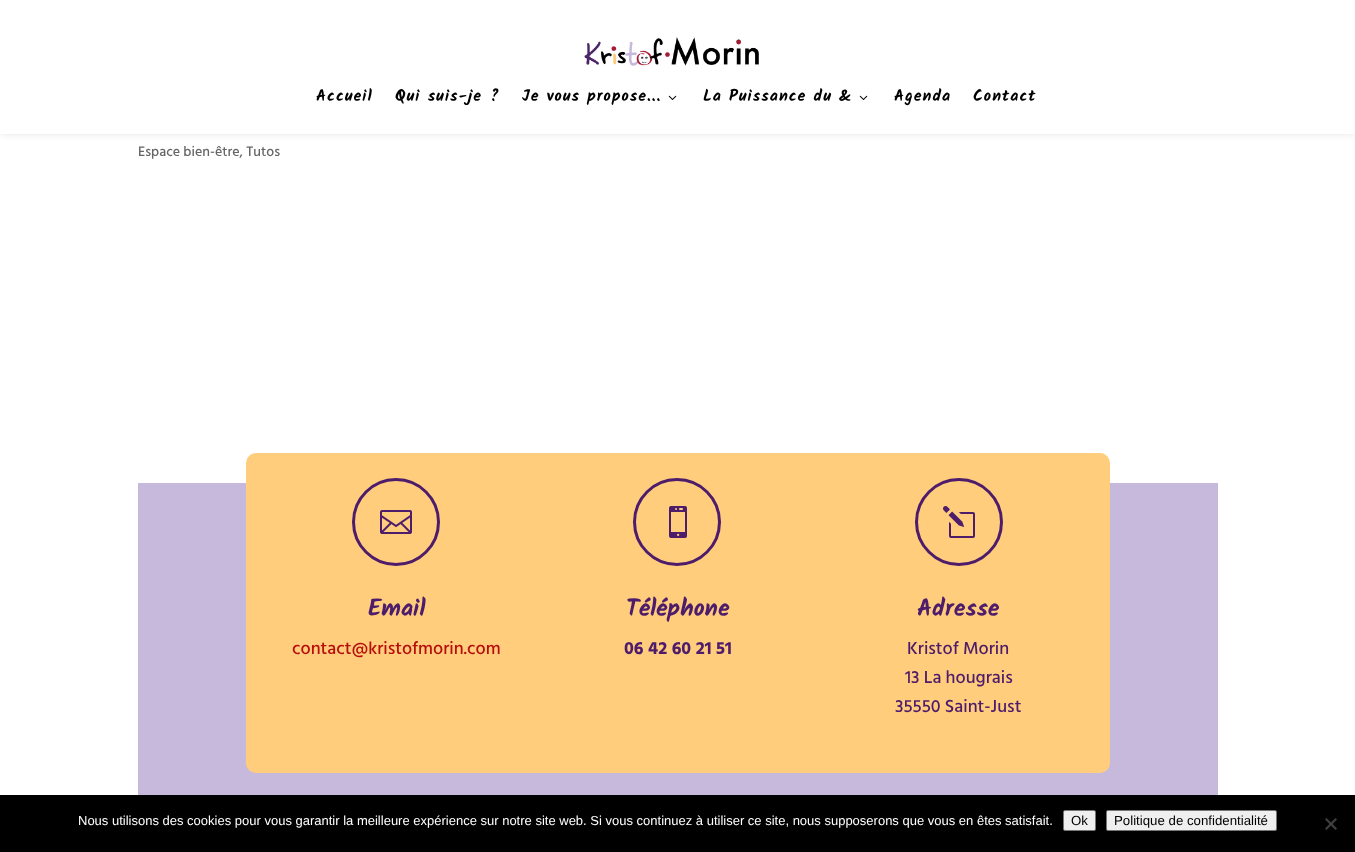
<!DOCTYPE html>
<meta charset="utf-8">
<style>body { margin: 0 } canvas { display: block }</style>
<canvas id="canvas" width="1355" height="852"></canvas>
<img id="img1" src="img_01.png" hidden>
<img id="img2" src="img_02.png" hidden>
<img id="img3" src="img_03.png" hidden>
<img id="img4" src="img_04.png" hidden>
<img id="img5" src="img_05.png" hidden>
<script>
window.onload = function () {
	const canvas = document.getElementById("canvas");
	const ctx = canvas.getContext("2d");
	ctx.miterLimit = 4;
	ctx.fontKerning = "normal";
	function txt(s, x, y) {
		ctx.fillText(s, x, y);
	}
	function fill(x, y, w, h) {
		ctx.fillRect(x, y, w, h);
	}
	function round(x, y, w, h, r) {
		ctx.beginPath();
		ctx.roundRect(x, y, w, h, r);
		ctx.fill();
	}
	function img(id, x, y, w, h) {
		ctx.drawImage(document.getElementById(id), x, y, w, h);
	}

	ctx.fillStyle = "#FFFFFF";
	fill(0, 0, 1355, 852);
	ctx.fillStyle = "rgba(0, 0, 0, 0.1)";
	ctx.filter = "blur(3.5px)";
	ctx.beginPath();
	ctx.rect(0, 0, 1355, 134);
	ctx.fill();
	ctx.filter = "none";
	ctx.fillStyle = "#FFFFFF";
	fill(0, 0, 1355, 134);
	img("img1", 584, 37, 175, 29);
	img("img2", 668, 95, 9, 5);
	img("img2", 859, 95, 9, 5);
	ctx.fillStyle = "#C7B9DB";
	fill(138, 483, 1080, 312);
	ctx.fillStyle = "#FFCD7C";
	round(246, 453, 864, 320, 10);
	ctx.beginPath();
	ctx.arc(396, 522, 42.5, 0, Math.PI * 2);
	ctx.strokeStyle = "#4D1C6B";
	ctx.lineWidth = 3;
	ctx.stroke();
	img("img3", 380, 510, 32, 24);
	ctx.beginPath();
	ctx.arc(677, 522, 42.5, 0, Math.PI * 2);
	ctx.stroke();
	img("img4", 669, 506, 18, 32);
	ctx.beginPath();
	ctx.arc(959, 522, 42.5, 0, Math.PI * 2);
	ctx.stroke();
	img("img5", 943, 506, 32, 32);
	ctx.fillStyle = "#000000";
	fill(0, 795, 1355, 57);
	ctx.fillStyle = "#EFEFEF";
	ctx.beginPath();
	ctx.roundRect(1063.5, 810.5, 32, 20, 1.5);
	ctx.fill();
	ctx.strokeStyle = "#767676";
	ctx.lineWidth = 1;
	ctx.stroke();
	ctx.beginPath();
	ctx.roundRect(1106.5, 810.5, 170, 20, 1.5);
	ctx.fill();
	ctx.stroke();
	ctx.fillStyle = "#404040";
	ctx.beginPath();
	ctx.moveTo(1335.5, 818);
	ctx.lineTo(1337, 819.5);
	ctx.lineTo(1326.5, 830);
	ctx.lineTo(1325, 828.5);
	ctx.closePath();
	ctx.fill();
	ctx.beginPath();
	ctx.moveTo(1325, 819.5);
	ctx.lineTo(1326.5, 818);
	ctx.lineTo(1337, 828.5);
	ctx.lineTo(1335.5, 830);
	ctx.closePath();
	ctx.fill();
	ctx.letterSpacing = "1px";
	ctx.font = "bold 16px Kalam";
	ctx.fillStyle = "#000000";
	txt("Accueil", 316, 101);
	txt("Qui suis-je ?", 395, 101);
	txt("Je vous propose…", 522, 101);
	txt("La Puissance du &", 703, 101);
	txt("Agenda", 894, 101);
	txt("Contact", 973, 101);
	ctx.letterSpacing = "0px";
	ctx.font = "500 14px Hind Siliguri";
	ctx.fillStyle = "#666666";
	txt("Espace bien-être, Tutos", 138, 156);
	ctx.font = "bold 24px Kalam";
	ctx.fillStyle = "#4D1C6B";
	txt("Email", 368, 616);
	ctx.font = "500 18px Hind Siliguri";
	ctx.fillStyle = "#B70E0C";
	txt("contact@kristofmorin.com", 292, 654);
	ctx.font = "bold 24px Kalam";
	ctx.fillStyle = "#4D1C6B";
	txt("Téléphone", 626, 616);
	ctx.font = "bold 18px Hind Siliguri";
	txt("06 42 60 21 51", 624, 654);
	ctx.font = "bold 24px Kalam";
	txt("Adresse", 917, 616);
	ctx.font = "500 18px Hind Siliguri";
	txt("Kristof Morin", 907, 654);
	txt("13 La hougrais", 905, 683);
	txt("35550 Saint-Just", 895, 712);
	ctx.font = "13px Liberation Sans";
	ctx.fillStyle = "#FFFFFF";
	txt("Nous utilisons des cookies pour vous garantir la meilleure expérience sur notre site web. Si vous continuez à utiliser ce site, nous supposerons que vous en êtes satisfait.", 78, 825);
	ctx.font = "13.25px Liberation Sans";
	ctx.fillStyle = "#000000";
	txt("Ok", 1071, 825);
	txt("Politique de confidentialité", 1114, 825);
};
</script>
